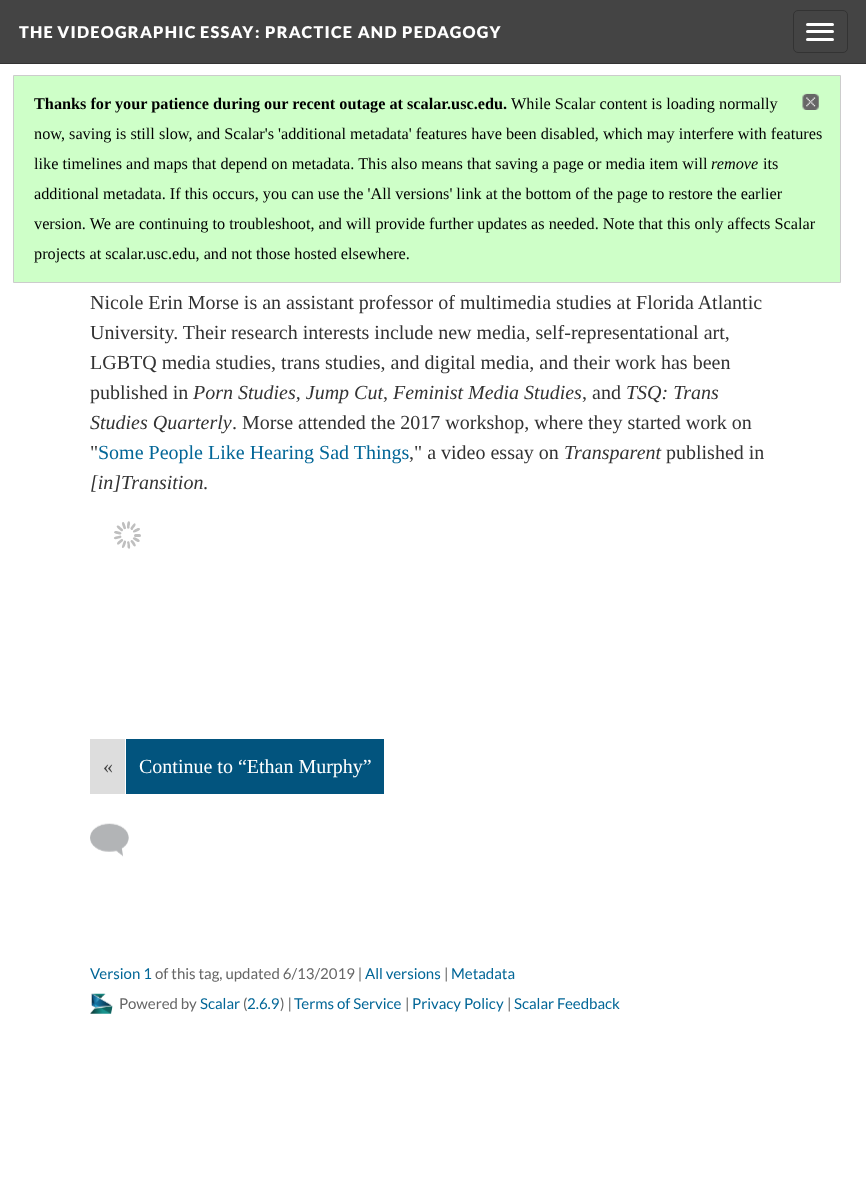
<!DOCTYPE html>
<meta charset="utf-8">
<style>body { margin: 0 } canvas { display: block }</style>
<canvas id="canvas" width="866" height="1193"></canvas>
<img id="img1" src="img_01.png" hidden>
<img id="img2" src="img_02.png" hidden>
<img id="img3" src="img_03.png" hidden>
<script>
window.onload = function () {
	const canvas = document.getElementById("canvas");
	const ctx = canvas.getContext("2d");
	ctx.miterLimit = 4;
	ctx.fontKerning = "normal";
	function txt(s, x, y) {
		ctx.fillText(s, x, y);
	}
	function fill(x, y, w, h) {
		ctx.fillRect(x, y, w, h);
	}
	function round(x, y, w, h, r) {
		ctx.beginPath();
		ctx.roundRect(x, y, w, h, r);
		ctx.fill();
	}
	function img(id, x, y, w, h) {
		ctx.drawImage(document.getElementById(id), x, y, w, h);
	}

	ctx.fillStyle = "#FFFFFF";
	fill(0, 0, 866, 1193);
	ctx.fillStyle = "#444444";
	fill(0, 0, 866, 63);
	ctx.fillStyle = "#333333";
	fill(0, 63, 866, 1);
	ctx.beginPath();
	ctx.roundRect(793.5, 10.5, 54, 42, 4.5);
	ctx.strokeStyle = "#333333";
	ctx.stroke();
	ctx.fillStyle = "#FFFFFF";
	round(806, 23, 28, 3, 1.5);
	round(806, 30, 28, 3, 1.5);
	round(806, 38, 28, 3, 1.5);
	ctx.fillStyle = "#CEFFC8";
	ctx.beginPath();
	ctx.rect(13.5, 75.5, 827, 207);
	ctx.fill();
	ctx.strokeStyle = "#CCCCCC";
	ctx.stroke();
	img("img1", 802, 93, 17, 17);
	ctx.fillStyle = "#BFBFBF";
	ctx.beginPath();
	ctx.moveTo(135, 537.5);
	ctx.bezierCurveTo(135.5, 537.5, 142, 540, 139, 542);
	ctx.bezierCurveTo(138, 542.5, 136, 541, 135, 540.5);
	ctx.lineTo(133, 539);
	ctx.bezierCurveTo(132.5, 538, 133.5, 536.5, 135, 537.5);
	ctx.closePath();
	ctx.fill();
	ctx.fillStyle = "rgba(0, 0, 0, 0.25)";
	ctx.beginPath();
	ctx.moveTo(133, 540.5);
	ctx.bezierCurveTo(133.5, 541, 138, 546.5, 134.5, 546.5);
	ctx.bezierCurveTo(133.5, 546.5, 132.5, 544, 131.5, 543);
	ctx.lineTo(130.5, 541.5);
	ctx.bezierCurveTo(130.5, 540, 132, 539.5, 133, 540.5);
	ctx.closePath();
	ctx.fill();
	ctx.fillStyle = "#BFBFBF";
	ctx.beginPath();
	ctx.moveTo(129.5, 542.5);
	ctx.bezierCurveTo(129.5, 543, 131.5, 550, 128.5, 548.5);
	ctx.bezierCurveTo(127, 548, 127.5, 545.5, 127.5, 544.5);
	ctx.lineTo(127, 542);
	ctx.bezierCurveTo(127.5, 541, 129.5, 541, 129.5, 542.5);
	ctx.closePath();
	ctx.moveTo(126, 542.5);
	ctx.bezierCurveTo(126, 543, 124, 550, 122, 547.5);
	ctx.bezierCurveTo(121.5, 546.5, 123, 544, 123, 543);
	ctx.lineTo(124, 541);
	ctx.bezierCurveTo(125, 540, 126.5, 541, 126, 542.5);
	ctx.closePath();
	ctx.fill();
	ctx.beginPath();
	ctx.moveTo(123, 541);
	ctx.bezierCurveTo(122, 541.5, 117.5, 547, 117, 543.5);
	ctx.bezierCurveTo(117, 542, 119, 541, 120, 540);
	ctx.lineTo(121.5, 539);
	ctx.bezierCurveTo(123, 538.5, 123.5, 540, 123, 541);
	ctx.closePath();
	ctx.fill();
	ctx.beginPath();
	ctx.moveTo(120.5, 538);
	ctx.bezierCurveTo(120, 538, 113, 541, 114, 537.5);
	ctx.bezierCurveTo(114.5, 536.5, 117, 536.5, 118.5, 536);
	ctx.lineTo(120.5, 535.5);
	ctx.bezierCurveTo(121.5, 536, 122, 537.5, 120.5, 538);
	ctx.closePath();
	ctx.moveTo(120, 534.5);
	ctx.bezierCurveTo(119, 534.5, 112, 533.5, 114.5, 531.5);
	ctx.bezierCurveTo(115.5, 530.5, 118, 531.5, 119, 531.5);
	ctx.lineTo(121, 532.5);
	ctx.bezierCurveTo(122, 533, 121, 535, 120, 534.5);
	ctx.closePath();
	ctx.fill();
	ctx.beginPath();
	ctx.moveTo(121, 531);
	ctx.bezierCurveTo(120.5, 530.5, 114.5, 526.5, 117.5, 525.5);
	ctx.bezierCurveTo(119, 525, 120.5, 527.5, 121.5, 528);
	ctx.lineTo(123, 529.5);
	ctx.bezierCurveTo(123.5, 530.5, 122, 532, 121, 531);
	ctx.closePath();
	ctx.fill();
	ctx.beginPath();
	ctx.moveTo(123.5, 528.5);
	ctx.bezierCurveTo(123.5, 527.5, 120, 521.5, 123.5, 522);
	ctx.bezierCurveTo(124.5, 522.5, 125, 525, 125.5, 526);
	ctx.lineTo(126, 528);
	ctx.bezierCurveTo(126, 529.5, 124, 529.5, 123.5, 528.5);
	ctx.closePath();
	ctx.fill();
	ctx.fillStyle = "rgba(0, 0, 0, 0.25)";
	ctx.beginPath();
	ctx.moveTo(127, 527.5);
	ctx.bezierCurveTo(127, 526.5, 127, 519.5, 129.5, 521.5);
	ctx.bezierCurveTo(130.5, 522.5, 130, 525, 129.5, 526);
	ctx.lineTo(129.5, 528);
	ctx.bezierCurveTo(128.5, 529.5, 127, 528.5, 127, 527.5);
	ctx.closePath();
	ctx.fill();
	ctx.beginPath();
	ctx.moveTo(130.5, 528);
	ctx.bezierCurveTo(131, 527.5, 134.5, 521, 135.5, 524);
	ctx.bezierCurveTo(136, 525.5, 134.5, 527, 133.5, 528);
	ctx.lineTo(132.5, 530);
	ctx.bezierCurveTo(131.5, 530.5, 130, 529, 130.5, 528);
	ctx.closePath();
	ctx.fill();
	ctx.fillStyle = "#BFBFBF";
	ctx.beginPath();
	ctx.moveTo(133.5, 530.5);
	ctx.bezierCurveTo(134, 530, 140, 526, 140, 529.5);
	ctx.bezierCurveTo(139.5, 530.5, 137, 531.5, 136, 532);
	ctx.lineTo(134, 532.5);
	ctx.bezierCurveTo(133, 533, 132.5, 531, 133.5, 530.5);
	ctx.closePath();
	ctx.fill();
	round(134, 534, 7, 3, 1.5);
	ctx.fillStyle = "#DDDDDD";
	fill(90, 739, 35, 55);
	ctx.fillStyle = "#02547E";
	fill(126, 739, 258, 55);
	img("img2", 90, 823, 39, 34);
	img("img3", 90, 993, 23, 21);
	ctx.letterSpacing = "1.25px";
	ctx.wordSpacing = "-1px";
	ctx.font = "900 16.25px Lato";
	ctx.fillStyle = "#FFFFFF";
	txt("THE VIDEOGRAPHIC ESSAY", 19, 38);
	ctx.wordSpacing = "0px";
	txt(": PRACTICE AND PEDAGOGY", 255, 38);
	ctx.letterSpacing = "0px";
	ctx.font = "bold 16.25px Liberation Serif";
	ctx.fillStyle = "#000000";
	txt("Thanks for your patience during our recent outage at scalar.usc.edu.", 34, 109);
	ctx.font = "16.25px Liberation Serif";
	txt("While Scalar content is loading normally", 511, 109);
	txt("now, saving is still slow, and Scalar's 'additional metadata' features have been disabled, which may interfere with features", 34, 139);
	txt("like timelines and maps that depend on metadata. This also means that saving a page or media item will", 34, 169);
	ctx.font = "italic 16.25px Liberation Serif";
	txt("remove", 711, 169);
	ctx.font = "16.25px Liberation Serif";
	txt("its", 763, 169);
	txt("additional metadata. If this occurs, you can use the 'All versions' link at the bottom of the page to restore the earlier", 34, 199);
	txt("version. We are continuing to troubleshoot, and will provide further updates as needed. Note that this only affects Scalar", 34, 229);
	txt("projects at scalar.usc.edu, and not those hosted elsewhere.", 34, 259);
	ctx.font = "20px Liberation Serif";
	ctx.fillStyle = "#333333";
	txt("Nicole Erin Morse is an assistant professor of multimedia studies at Florida Atlantic", 90, 309);
	txt("University. Their research interests include new media, self-representational art,", 90, 339);
	txt("LGBTQ media studies, trans studies, and digital media, and their work has been", 90, 369);
	txt("published in", 90, 399);
	ctx.font = "italic 20px Liberation Serif";
	txt("Porn Studies, Jump Cut", 193, 399);
	ctx.font = "20px Liberation Serif";
	txt(",", 383, 399);
	ctx.font = "italic 20px Liberation Serif";
	txt("Feminist Media Studies", 393, 399);
	ctx.font = "20px Liberation Serif";
	txt(", and", 582, 399);
	ctx.font = "italic 20px Liberation Serif";
	txt("TSQ: Trans", 626, 399);
	txt("Studies Quarterly", 90, 429);
	ctx.font = "20px Liberation Serif";
	txt(". Morse attended the 2017 workshop, where they started work on", 232, 429);
	txt("\"", 90, 459);
	ctx.fillStyle = "#026697";
	txt("Some People Like Hearing Sad Things", 98, 459);
	ctx.fillStyle = "#333333";
	txt(",\" a video essay on", 409, 459);
	ctx.font = "italic 20px Liberation Serif";
	txt("Transparent", 564, 459);
	ctx.font = "20px Liberation Serif";
	txt("published in", 666, 459);
	ctx.font = "italic 20px Liberation Serif";
	txt("[in]Transition", 90, 489);
	ctx.font = "20px Liberation Serif";
	txt(".", 203, 489);
	ctx.fillStyle = "#444444";
	txt("«", 103, 773);
	ctx.fillStyle = "#FFFFFF";
	txt("Continue to “Ethan Murphy”", 139, 773);
	ctx.font = "15px Lato";
	ctx.fillStyle = "#026697";
	txt("Version 1", 90, 979);
	ctx.fillStyle = "#666666";
	txt("of this tag, updated 6/13/2019 |", 155, 979);
	ctx.fillStyle = "#026697";
	txt("All versions", 365, 979);
	ctx.fillStyle = "#666666";
	txt("|", 444, 979);
	ctx.fillStyle = "#026697";
	txt("Metadata", 451, 979);
	ctx.fillStyle = "#666666";
	txt("Powered by", 119, 1009);
	ctx.fillStyle = "#026697";
	txt("Scalar", 200, 1009);
	ctx.fillStyle = "#666666";
	txt("(", 243, 1009);
	ctx.fillStyle = "#026697";
	txt("2.6.9", 247, 1009);
	ctx.fillStyle = "#666666";
	txt(") |", 280, 1009);
	ctx.fillStyle = "#026697";
	txt("Terms of Service", 294, 1009);
	ctx.fillStyle = "#666666";
	txt("|", 405, 1009);
	ctx.fillStyle = "#026697";
	txt("Privacy Policy", 412, 1009);
	ctx.fillStyle = "#666666";
	txt("|", 507, 1009);
	ctx.fillStyle = "#026697";
	txt("Scalar Feedback", 514, 1009);
};
</script>
